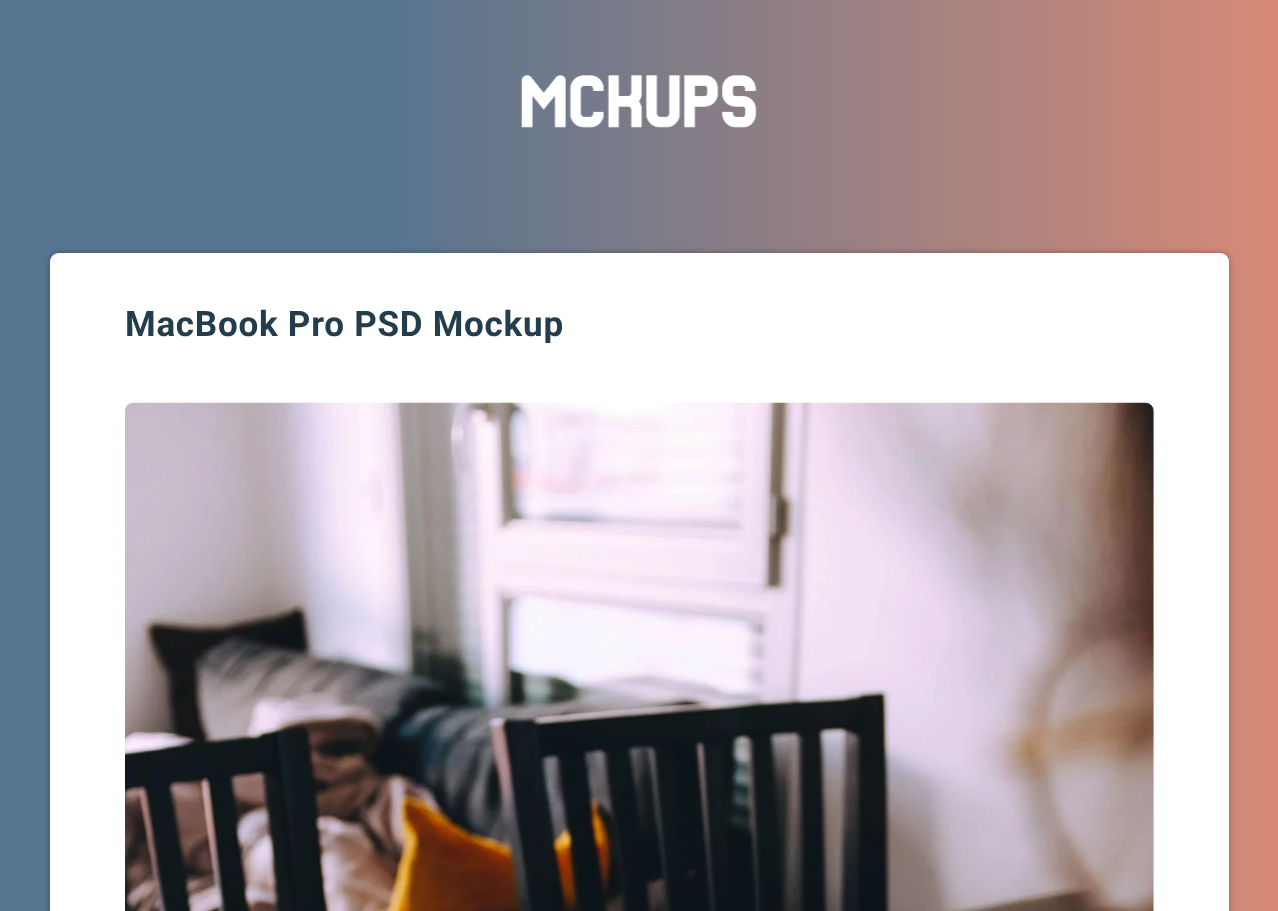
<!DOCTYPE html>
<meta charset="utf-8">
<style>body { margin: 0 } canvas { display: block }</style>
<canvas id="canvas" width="1278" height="911"></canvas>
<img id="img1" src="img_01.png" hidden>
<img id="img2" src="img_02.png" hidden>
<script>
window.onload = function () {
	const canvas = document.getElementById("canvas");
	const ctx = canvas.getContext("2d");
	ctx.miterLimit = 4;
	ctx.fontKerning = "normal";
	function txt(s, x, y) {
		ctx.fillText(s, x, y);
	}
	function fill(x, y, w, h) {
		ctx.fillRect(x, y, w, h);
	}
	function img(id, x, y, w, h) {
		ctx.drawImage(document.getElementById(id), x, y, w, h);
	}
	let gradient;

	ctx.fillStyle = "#FFFFFF";
	fill(0, 0, 1278, 911);
	gradient = ctx.createLinearGradient(0, 456, 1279, 456);
	gradient.addColorStop(0.3, "#577590");
	gradient.addColorStop(1, "#D78A76");
	ctx.fillStyle = gradient;
	fill(0, 0, 1278, 911);
	img("img1", 521, 75, 236, 53);
	ctx.fillStyle = "rgba(0, 0, 0, 0.3)";
	ctx.filter = "blur(3px)";
	ctx.beginPath();
	ctx.roundRect(50, 253, 1179, 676, 9);
	ctx.fill();
	ctx.filter = "none";
	ctx.fillStyle = "#FFFFFF";
	ctx.beginPath();
	ctx.moveTo(59, 253);
	ctx.lineTo(1220, 253);
	ctx.bezierCurveTo(1225, 253, 1229, 257, 1229, 262);
	ctx.lineTo(1229, 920);
	ctx.lineTo(50, 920);
	ctx.lineTo(50, 262);
	ctx.bezierCurveTo(50, 257, 54, 253, 59, 253);
	ctx.closePath();
	ctx.fill();
	img("img2", 125, 402, 1029, 509);
	ctx.letterSpacing = "0.75px";
	ctx.font = "bold 35px Roboto";
	ctx.fillStyle = "#233D4D";
	txt("MacBook Pro PSD Mockup", 125, 336);
};
</script>
